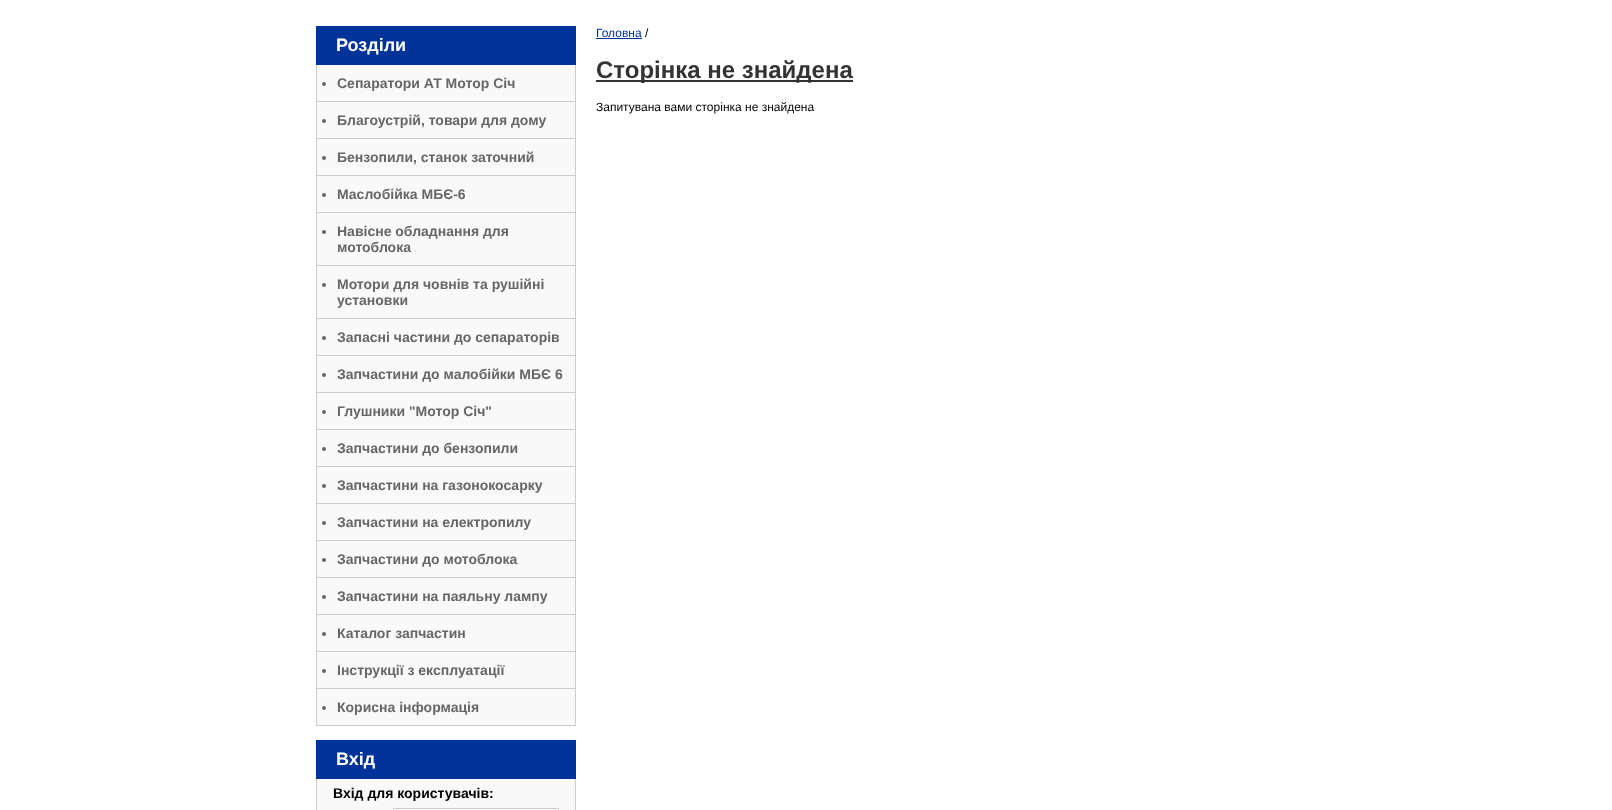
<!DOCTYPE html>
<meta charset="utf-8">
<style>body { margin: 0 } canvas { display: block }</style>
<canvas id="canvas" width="1612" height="810"></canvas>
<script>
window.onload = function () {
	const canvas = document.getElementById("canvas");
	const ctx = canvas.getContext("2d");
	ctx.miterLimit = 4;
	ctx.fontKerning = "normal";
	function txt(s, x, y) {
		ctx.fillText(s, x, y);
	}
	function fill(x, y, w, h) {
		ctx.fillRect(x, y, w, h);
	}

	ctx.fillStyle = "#FFFFFF";
	fill(0, 0, 1612, 810);
	ctx.fillStyle = "#003399";
	fill(316, 26, 260, 39);
	ctx.fillStyle = "#F9F9F9";
	fill(317, 65, 258, 660);
	ctx.fillStyle = "#CCCCCC";
	fill(575, 65, 1, 661);
	fill(316, 65, 1, 661);
	fill(317, 101, 258, 1);
	ctx.fillStyle = "#666666";
	ctx.beginPath();
	ctx.arc(324, 84, 2, 0, Math.PI * 2);
	ctx.fill();
	ctx.fillStyle = "#CCCCCC";
	fill(317, 138, 258, 1);
	ctx.fillStyle = "#666666";
	ctx.beginPath();
	ctx.arc(324, 121, 2, 0, Math.PI * 2);
	ctx.fill();
	ctx.fillStyle = "#CCCCCC";
	fill(317, 175, 258, 1);
	ctx.fillStyle = "#666666";
	ctx.beginPath();
	ctx.arc(324, 158, 2, 0, Math.PI * 2);
	ctx.fill();
	ctx.fillStyle = "#CCCCCC";
	fill(317, 212, 258, 1);
	ctx.fillStyle = "#666666";
	ctx.beginPath();
	ctx.arc(324, 195, 2, 0, Math.PI * 2);
	ctx.fill();
	ctx.fillStyle = "#CCCCCC";
	fill(317, 265, 258, 1);
	ctx.fillStyle = "#666666";
	ctx.beginPath();
	ctx.arc(324, 232, 2, 0, Math.PI * 2);
	ctx.fill();
	ctx.fillStyle = "#CCCCCC";
	fill(317, 318, 258, 1);
	ctx.fillStyle = "#666666";
	ctx.beginPath();
	ctx.arc(324, 285, 2, 0, Math.PI * 2);
	ctx.fill();
	ctx.fillStyle = "#CCCCCC";
	fill(317, 355, 258, 1);
	ctx.fillStyle = "#666666";
	ctx.beginPath();
	ctx.arc(324, 338, 2, 0, Math.PI * 2);
	ctx.fill();
	ctx.fillStyle = "#CCCCCC";
	fill(317, 392, 258, 1);
	ctx.fillStyle = "#666666";
	ctx.beginPath();
	ctx.arc(324, 375, 2, 0, Math.PI * 2);
	ctx.fill();
	ctx.fillStyle = "#CCCCCC";
	fill(317, 429, 258, 1);
	ctx.fillStyle = "#666666";
	ctx.beginPath();
	ctx.arc(324, 412, 2, 0, Math.PI * 2);
	ctx.fill();
	ctx.fillStyle = "#CCCCCC";
	fill(317, 466, 258, 1);
	ctx.fillStyle = "#666666";
	ctx.beginPath();
	ctx.arc(324, 449, 2, 0, Math.PI * 2);
	ctx.fill();
	ctx.fillStyle = "#CCCCCC";
	fill(317, 503, 258, 1);
	ctx.fillStyle = "#666666";
	ctx.beginPath();
	ctx.arc(324, 486, 2, 0, Math.PI * 2);
	ctx.fill();
	ctx.fillStyle = "#CCCCCC";
	fill(317, 540, 258, 1);
	ctx.fillStyle = "#666666";
	ctx.beginPath();
	ctx.arc(324, 523, 2, 0, Math.PI * 2);
	ctx.fill();
	ctx.fillStyle = "#CCCCCC";
	fill(317, 577, 258, 1);
	ctx.fillStyle = "#666666";
	ctx.beginPath();
	ctx.arc(324, 560, 2, 0, Math.PI * 2);
	ctx.fill();
	ctx.fillStyle = "#CCCCCC";
	fill(317, 614, 258, 1);
	ctx.fillStyle = "#666666";
	ctx.beginPath();
	ctx.arc(324, 597, 2, 0, Math.PI * 2);
	ctx.fill();
	ctx.fillStyle = "#CCCCCC";
	fill(317, 651, 258, 1);
	ctx.fillStyle = "#666666";
	ctx.beginPath();
	ctx.arc(324, 634, 2, 0, Math.PI * 2);
	ctx.fill();
	ctx.fillStyle = "#CCCCCC";
	fill(317, 688, 258, 1);
	ctx.fillStyle = "#666666";
	ctx.beginPath();
	ctx.arc(324, 671, 2, 0, Math.PI * 2);
	ctx.fill();
	ctx.fillStyle = "#CCCCCC";
	fill(317, 725, 258, 1);
	ctx.fillStyle = "#666666";
	ctx.beginPath();
	ctx.arc(324, 708, 2, 0, Math.PI * 2);
	ctx.fill();
	ctx.fillStyle = "#003399";
	fill(316, 740, 260, 39);
	ctx.fillStyle = "#F9F9F9";
	fill(317, 779, 258, 31);
	ctx.fillStyle = "#CCCCCC";
	fill(575, 779, 1, 31);
	fill(316, 779, 1, 31);
	ctx.fillStyle = "#FFFFFF";
	ctx.beginPath();
	ctx.rect(393.5, 808.5, 165, 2);
	ctx.fill();
	ctx.strokeStyle = "#CCCCCC";
	ctx.stroke();
	ctx.fillStyle = "#003399";
	fill(596, 38, 46, 1);
	ctx.fillStyle = "#333333";
	fill(596, 80, 257, 2);
	ctx.font = "bold 18px Liberation Sans";
	ctx.fillStyle = "#FFFFFF";
	txt("Розділи", 336, 51);
	ctx.font = "bold 14px Liberation Sans";
	ctx.fillStyle = "#666666";
	txt("Сепаратори АТ Мотор Січ", 337, 88);
	txt("Благоустрій, товари для дому", 337, 125);
	txt("Бензопили, станок заточний", 337, 162);
	txt("Маслобійка МБЄ-6", 337, 199);
	txt("Навісне обладнання для", 337, 236);
	txt("мотоблока", 337, 252);
	txt("Мотори для човнів та рушійні", 337, 289);
	txt("установки", 337, 305);
	txt("Запасні частини до сепараторів", 337, 342);
	txt("Запчастини до малобійки МБЄ 6", 337, 379);
	txt("Глушники \"Мотор Січ\"", 337, 416);
	txt("Запчастини до бензопили", 337, 453);
	txt("Запчастини на газонокосарку", 337, 490);
	txt("Запчастини на електропилу", 337, 527);
	txt("Запчастини до мотоблока", 337, 564);
	txt("Запчастини на паяльну лампу", 337, 601);
	txt("Каталог запчастин", 337, 638);
	txt("Інструкції з експлуатації", 337, 675);
	txt("Корисна інформація", 337, 712);
	ctx.font = "bold 18px Liberation Sans";
	ctx.fillStyle = "#FFFFFF";
	txt("Вхід", 336, 765);
	ctx.font = "bold 14px Liberation Sans";
	ctx.fillStyle = "#000000";
	txt("Вхід для користувачів:", 333, 798);
	ctx.font = "12px Liberation Sans";
	ctx.fillStyle = "#003399";
	txt("Головна", 596, 37);
	ctx.fillStyle = "#000000";
	txt("/", 645, 37);
	ctx.font = "bold 24px Liberation Sans";
	ctx.fillStyle = "#333333";
	txt("Сторінка не знайдена", 596, 78);
	ctx.font = "12px Liberation Sans";
	ctx.fillStyle = "#000000";
	txt("Запитувана вами сторінка не знайдена", 596, 111);
};
</script>
